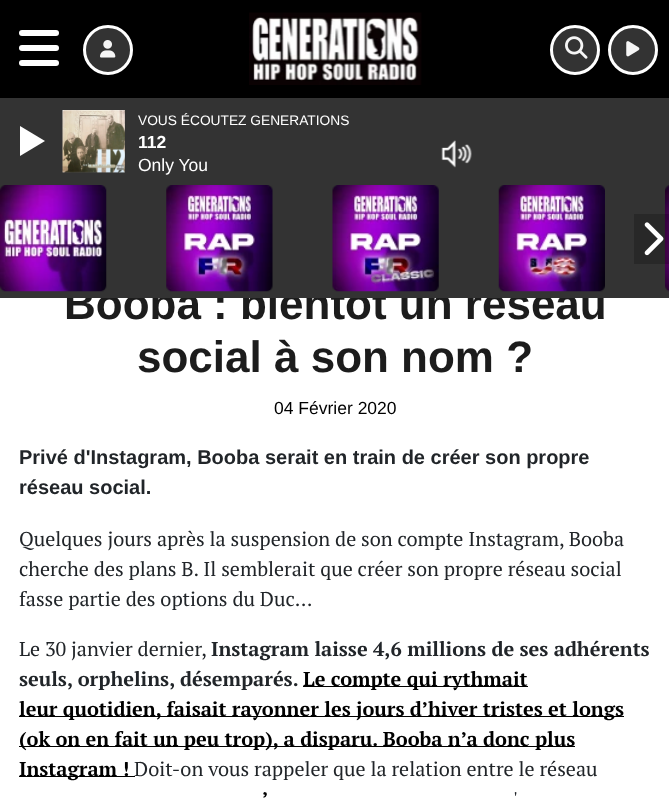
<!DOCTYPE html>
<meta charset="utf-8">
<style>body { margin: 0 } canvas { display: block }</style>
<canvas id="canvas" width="669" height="802"></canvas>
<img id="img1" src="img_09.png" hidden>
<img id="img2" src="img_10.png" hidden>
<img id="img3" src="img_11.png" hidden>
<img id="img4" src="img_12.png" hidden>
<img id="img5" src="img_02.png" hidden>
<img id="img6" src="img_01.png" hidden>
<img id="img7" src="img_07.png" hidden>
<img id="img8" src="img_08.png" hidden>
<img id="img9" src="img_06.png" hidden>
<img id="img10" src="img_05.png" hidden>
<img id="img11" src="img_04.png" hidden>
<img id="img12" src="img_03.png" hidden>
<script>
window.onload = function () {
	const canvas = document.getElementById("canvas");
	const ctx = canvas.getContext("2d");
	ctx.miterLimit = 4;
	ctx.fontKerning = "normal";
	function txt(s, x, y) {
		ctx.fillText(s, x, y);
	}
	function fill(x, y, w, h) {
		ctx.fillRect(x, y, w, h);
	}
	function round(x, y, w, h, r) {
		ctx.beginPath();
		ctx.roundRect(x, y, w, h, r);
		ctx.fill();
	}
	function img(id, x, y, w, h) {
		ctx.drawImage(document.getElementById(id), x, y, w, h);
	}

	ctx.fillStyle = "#FFFFFF";
	fill(0, 0, 669, 802);
	ctx.fillStyle = "#000000";
	fill(0, 0, 669, 98);
	ctx.fillStyle = "#FFFFFF";
	round(19, 30, 40, 6, 3);
	round(19, 45, 40, 6, 3);
	round(19, 60, 40, 6, 3);
	ctx.fillStyle = "#333333";
	ctx.beginPath();
	ctx.arc(108, 50, 23.5, 0, Math.PI * 2);
	ctx.fill();
	ctx.strokeStyle = "#FFFFFF";
	ctx.lineWidth = 3;
	ctx.stroke();
	img("img1", 100, 40, 16, 18);
	img("img2", 249, 12, 173, 73);
	ctx.beginPath();
	ctx.arc(575, 50, 23.5, 0, Math.PI * 2);
	ctx.fill();
	ctx.stroke();
	img("img3", 565, 36, 23, 23);
	ctx.beginPath();
	ctx.arc(633, 50, 23.5, 0, Math.PI * 2);
	ctx.fill();
	ctx.stroke();
	img("img4", 626, 41, 14, 16);
	ctx.fillStyle = "#000000";
	fill(303, 686, 225, 1);
	fill(19, 716, 605, 1);
	fill(19, 746, 556, 1);
	fill(19, 776, 116, 1);
	ctx.font = "bold 44px Liberation Sans";
	ctx.fillStyle = "#1C1C1C";
	txt("Booba : bientôt un réseau", 64, 319);
	ctx.fillStyle = "#333333";
	fill(0, 98, 669, 200);
	img("img5", 441, 140, 31, 28);
	ctx.font = "17.5px Liberation Sans";
	ctx.fillStyle = "#FFFFFF";
	txt("Only You", 138, 171);
	img("img6", 62, 110, 63, 63);
	ctx.font = "bold 17.5px Liberation Sans";
	txt("112", 138, 148);
	ctx.font = "13.75px Liberation Sans";
	txt("VOUS ÉCOUTEZ GENERATIONS", 138, 125);
	ctx.beginPath();
	ctx.moveTo(20, 156);
	ctx.lineTo(20, 126);
	ctx.lineTo(45, 141);
	ctx.closePath();
	ctx.fill();
	img("img7", 665, 185, 4, 107);
	ctx.fillStyle = "rgba(0, 0, 0, 0.2)";
	fill(634, 214, 35, 50);
	img("img8", 644, 222, 20, 34);
	img("img9", 498, 185, 107, 107);
	img("img10", 332, 185, 107, 107);
	img("img11", 166, 185, 107, 107);
	img("img12", 0, 185, 107, 107);
	ctx.font = "bold 44px Liberation Sans";
	ctx.fillStyle = "#1C1C1C";
	txt("social à son nom ?", 137, 372);
	ctx.font = "17.5px Liberation Sans";
	ctx.fillStyle = "#000000";
	txt("04 Février 2020", 274, 414);
	ctx.font = "bold 20px Liberation Sans";
	ctx.fillStyle = "#212529";
	txt("Privé d'Instagram, Booba serait en train de créer son propre", 19, 464);
	txt("réseau social.", 19, 494);
	ctx.font = "20px PT Serif";
	txt("Quelques jours après la suspension de son compte Instagram, Booba", 19, 546);
	txt("cherche des plans B. Il semblerait que créer son propre réseau social", 19, 576);
	txt("fasse partie des options du Duc…", 19, 606);
	txt("Le 30 janvier dernier,", 19, 656);
	ctx.font = "bold 20px PT Serif";
	txt("Instagram laisse 4,6 millions de ses adhérents", 211, 656);
	txt("seuls, orphelins, désemparés.", 19, 686);
	ctx.fillStyle = "#000000";
	txt("Le compte qui rythmait", 303, 686);
	txt("leur quotidien, faisait rayonner les jours d’hiver tristes et longs", 19, 716);
	txt("(ok on en fait un peu trop), a disparu. Booba n’a donc plus", 19, 746);
	txt("Instagram !", 19, 776);
	ctx.font = "20px PT Serif";
	ctx.fillStyle = "#212529";
	txt("Doit-on vous rappeler que la relation entre le réseau", 134, 776);
	ctx.font = "bold 20px PT Serif";
	ctx.fillStyle = "#000000";
	txt("’", 262, 806);
	ctx.font = "20px PT Serif";
	ctx.fillStyle = "#212529";
	txt("'", 513, 806);
};
</script>
